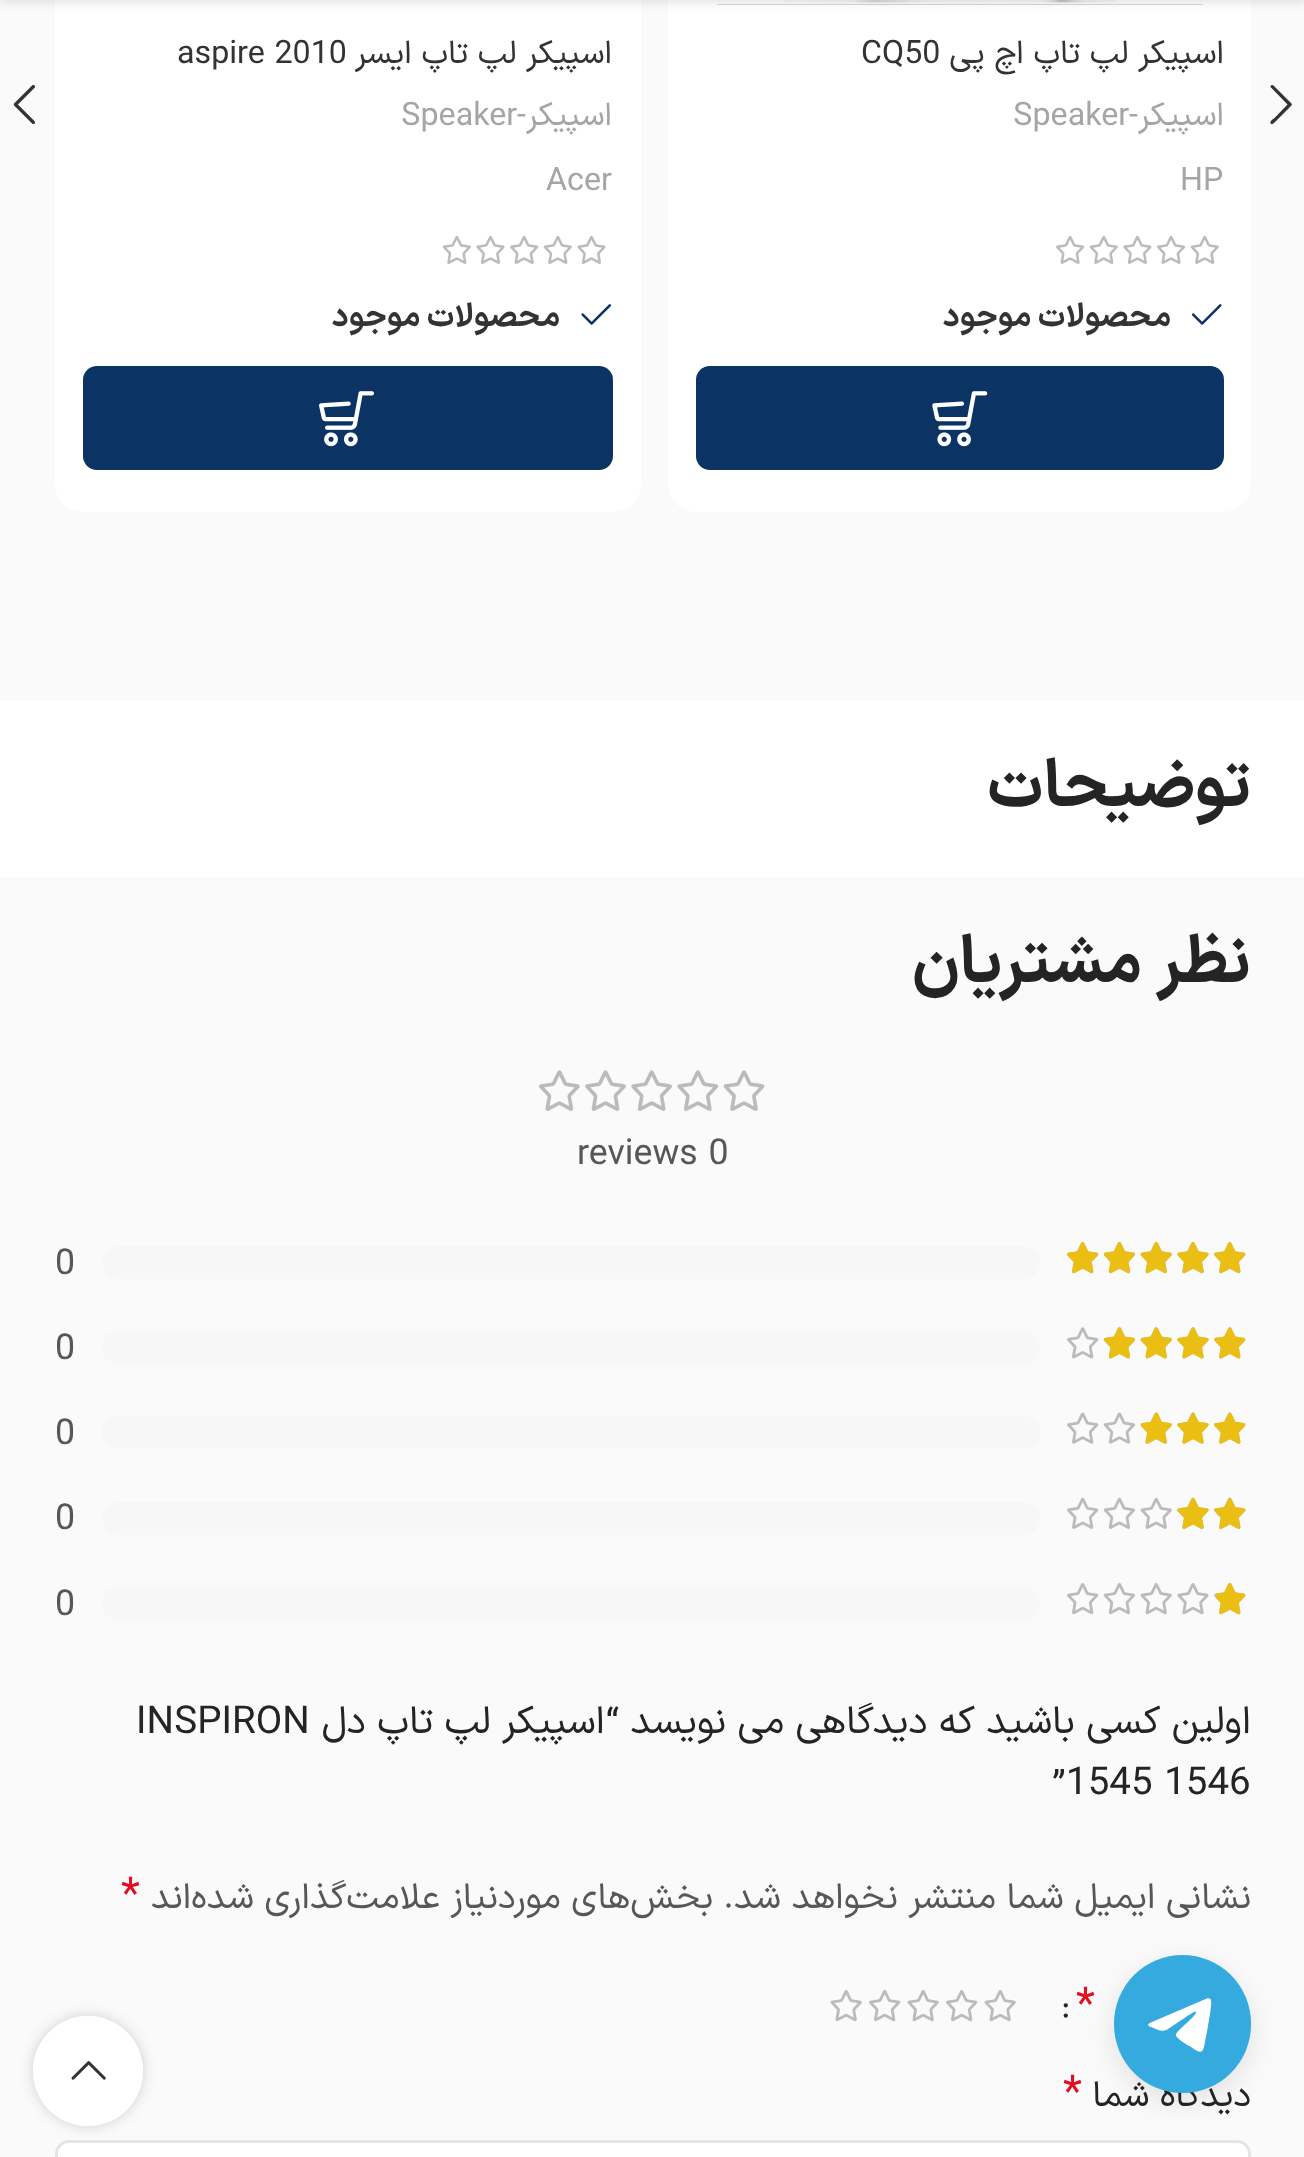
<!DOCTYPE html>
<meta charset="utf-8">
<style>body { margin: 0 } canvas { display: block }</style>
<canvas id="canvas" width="1304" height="2157"></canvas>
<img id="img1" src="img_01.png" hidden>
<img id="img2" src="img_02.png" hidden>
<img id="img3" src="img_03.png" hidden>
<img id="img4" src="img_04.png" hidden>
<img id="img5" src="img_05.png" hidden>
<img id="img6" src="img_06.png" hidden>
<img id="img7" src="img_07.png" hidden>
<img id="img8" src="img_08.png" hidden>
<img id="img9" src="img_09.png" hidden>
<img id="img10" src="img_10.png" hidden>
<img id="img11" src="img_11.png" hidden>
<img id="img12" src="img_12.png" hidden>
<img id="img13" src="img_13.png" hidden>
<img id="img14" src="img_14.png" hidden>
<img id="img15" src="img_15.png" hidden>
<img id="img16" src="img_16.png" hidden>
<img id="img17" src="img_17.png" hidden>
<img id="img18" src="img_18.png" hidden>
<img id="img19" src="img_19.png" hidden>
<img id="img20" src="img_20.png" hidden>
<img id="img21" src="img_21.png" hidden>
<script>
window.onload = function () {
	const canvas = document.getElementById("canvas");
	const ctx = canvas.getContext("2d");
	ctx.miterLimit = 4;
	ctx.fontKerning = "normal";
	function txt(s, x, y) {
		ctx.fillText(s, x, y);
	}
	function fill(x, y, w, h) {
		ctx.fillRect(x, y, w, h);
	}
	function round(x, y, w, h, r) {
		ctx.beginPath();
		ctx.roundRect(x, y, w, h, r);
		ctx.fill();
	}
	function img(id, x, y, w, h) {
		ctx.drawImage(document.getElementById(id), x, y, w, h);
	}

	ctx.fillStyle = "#FFFFFF";
	fill(0, 0, 1304, 2157);
	ctx.fillStyle = "#FAFAFA";
	fill(0, 0, 1304, 701);
	ctx.fillStyle = "#FFFFFF";
	round(668, -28, 583, 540, 28);
	img("img1", 716, 0, 488, 5);
	round(55, -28, 586, 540, 28);
	ctx.fillStyle = "rgba(0, 0, 0, 0.1)";
	ctx.filter = "blur(4px)";
	ctx.beginPath();
	ctx.rect(0, -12, 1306, 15);
	ctx.fill();
	ctx.filter = "none";
	img("img2", 1056, 235, 163, 29);
	img("img3", 1192, 304, 30, 21);
	ctx.fillStyle = "#0B3364";
	round(696, 366, 528, 104, 14);
	img("img4", 932, 391, 56, 56);
	img("img5", 442, 235, 164, 29);
	img("img6", 581, 304, 31, 21);
	round(83, 366, 530, 104, 14);
	img("img7", 319, 391, 55, 56);
	ctx.fillStyle = "#333333";
	ctx.beginPath();
	ctx.moveTo(1273.5, 85.5);
	ctx.bezierCurveTo(1272, 84, 1270, 85.5, 1270.5, 87);
	ctx.lineTo(1287.5, 104.5);
	ctx.lineTo(1274, 118.5);
	ctx.bezierCurveTo(1273, 119, 1270, 121, 1270.5, 123);
	ctx.bezierCurveTo(1271.5, 126.5, 1276, 121, 1276.5, 120.5);
	ctx.lineTo(1288.5, 108.5);
	ctx.bezierCurveTo(1293, 104, 1293, 105, 1288.5, 100.5);
	ctx.closePath();
	ctx.fill();
	img("img8", 13, 84, 22, 41);
	ctx.fillStyle = "#FAFAFA";
	fill(0, 877, 1304, 1280);
	img("img9", 539, 1070, 226, 41);
	img("img10", 1067, 1242, 179, 32);
	img("img11", 1067, 1242, 179, 32);
	ctx.fillStyle = "#F7F7F7";
	round(102, 1246, 938, 33, 16.5);
	img("img12", 1067, 1327, 179, 32);
	img("img13", 1103, 1327, 143, 32);
	round(102, 1331, 938, 33, 16.5);
	img("img14", 1067, 1412, 179, 32);
	img("img15", 1141, 1412, 105, 32);
	round(102, 1416, 938, 33, 16.5);
	img("img16", 1067, 1497, 179, 32);
	img("img17", 1177, 1497, 69, 32);
	round(102, 1502, 938, 33, 16.5);
	img("img10", 1067, 1583, 179, 32);
	img("img18", 1216, 1583, 30, 32);
	round(102, 1587, 938, 33, 16.5);
	img("img19", 984, 1990, 32, 32);
	img("img20", 946, 1990, 32, 32);
	img("img19", 907, 1990, 32, 32);
	img("img20", 869, 1990, 32, 32);
	img("img19", 830, 1990, 32, 32);
	ctx.fillStyle = "#FFFFFF";
	ctx.beginPath();
	ctx.roundRect(56.5, 2141.5, 1193, 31, 12.5);
	ctx.fill();
	ctx.strokeStyle = "#E5E5E5";
	ctx.lineWidth = 3;
	ctx.stroke();
	ctx.fillStyle = "rgba(0, 0, 0, 0.1)";
	ctx.filter = "blur(14px)";
	ctx.beginPath();
	ctx.roundRect(1114, 1964, 137, 137, 68.5);
	ctx.fill();
	ctx.filter = "none";
	ctx.save();
	ctx.beginPath();
	ctx.moveTo(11, 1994);
	ctx.lineTo(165, 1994);
	ctx.lineTo(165, 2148);
	ctx.lineTo(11, 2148);
	ctx.closePath();
	ctx.moveTo(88, 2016);
	ctx.bezierCurveTo(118.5, 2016, 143, 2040.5, 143, 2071);
	ctx.bezierCurveTo(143, 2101.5, 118.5, 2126, 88, 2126);
	ctx.bezierCurveTo(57.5, 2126, 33, 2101.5, 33, 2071);
	ctx.bezierCurveTo(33, 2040.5, 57.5, 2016, 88, 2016);
	ctx.closePath();
	ctx.clip("evenodd");
	ctx.fillStyle = "rgba(0, 0, 0, 0.17)";
	ctx.filter = "blur(7px)";
	ctx.beginPath();
	ctx.roundRect(33, 2016, 110, 110, 55);
	ctx.fill();
	ctx.filter = "none";
	ctx.restore();
	ctx.fillStyle = "rgba(255, 255, 255, 0.9)";
	ctx.beginPath();
	ctx.arc(88, 2071, 55, 0, Math.PI * 2);
	ctx.fill();
	img("img21", 71, 2061, 35, 19);
	ctx.direction = "rtl";
	ctx.font = "32.25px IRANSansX";
	ctx.fillStyle = "#333333";
	txt("اسپیکر لپ تاپ اچ پی", 1224, 63);
	ctx.direction = "ltr";
	txt("CQ50", 861, 63);
	ctx.direction = "rtl";
	ctx.fillStyle = "#A5A5A5";
	txt("اسپیکر-", 1224, 125);
	ctx.direction = "ltr";
	txt("Speaker", 1013, 125);
	txt("HP", 1180, 190);
	ctx.direction = "rtl";
	ctx.font = "bold 32.25px IRANSansX";
	ctx.fillStyle = "#333333";
	txt("محصولات موجود", 1171, 326);
	ctx.font = "32.25px IRANSansX";
	txt("اسپیکر لپ تاپ ایسر", 612, 63);
	ctx.direction = "ltr";
	txt("aspire 2010", 177, 63);
	ctx.direction = "rtl";
	ctx.fillStyle = "#A5A5A5";
	txt("اسپیکر-", 612, 125);
	ctx.direction = "ltr";
	txt("Speaker", 401, 125);
	txt("Acer", 546, 190);
	ctx.direction = "rtl";
	ctx.font = "bold 32.25px IRANSansX";
	ctx.fillStyle = "#333333";
	txt("محصولات موجود", 560, 326);
	ctx.font = "bold 66px IRANSansX";
	ctx.fillStyle = "#242424";
	txt("توضیحات", 1251, 806);
	txt("نظر مشتریان", 1251, 982);
	ctx.direction = "ltr";
	ctx.font = "35.75px IRANSansX";
	ctx.fillStyle = "#575757";
	txt("reviews 0", 577, 1164);
	txt("0", 55, 1274);
	txt("0", 55, 1359);
	txt("0", 55, 1444);
	txt("0", 55, 1529);
	txt("0", 55, 1615);
	ctx.direction = "rtl";
	ctx.font = "38.5px IRANSansX";
	ctx.fillStyle = "#242424";
	txt("اولین کسی باشید که دیدگاهی می نویسد “اسپیکر لپ تاپ دل", 1251, 1733);
	ctx.direction = "ltr";
	txt("INSPIRON", 136, 1733);
	txt("”1545 1546", 1053, 1794);
	ctx.direction = "rtl";
	ctx.font = "35.75px IRANSansX";
	ctx.fillStyle = "#575757";
	txt("نشانی ایمیل شما منتشر نخواهد شد.", 1251, 1908);
	txt("بخش‌های موردنیاز علامت‌گذاری شده‌اند", 713, 1908);
	ctx.direction = "ltr";
	ctx.font = "44px IRANSansX";
	ctx.fillStyle = "#E01020";
	txt("*", 121, 1908);
	txt("*", 1076, 2018);
	ctx.font = "35.75px IRANSansX";
	ctx.fillStyle = "#242424";
	txt(":", 1061, 2018);
	ctx.direction = "rtl";
	txt("دیدگاه شما", 1251, 2106);
	ctx.direction = "ltr";
	ctx.font = "44px IRANSansX";
	ctx.fillStyle = "#E01020";
	txt("*", 1063, 2106);
	ctx.fillStyle = "#34AADF";
	round(1114, 1955, 137, 138, 68.5);
	ctx.fillStyle = "#FFFFFF";
	ctx.beginPath();
	ctx.moveTo(1152, 2022);
	ctx.lineTo(1208, 1998);
	ctx.bezierCurveTo(1209, 1998, 1211, 1999, 1211, 2000);
	ctx.bezierCurveTo(1212, 2004, 1209, 2021, 1208, 2026);
	ctx.lineTo(1205, 2042);
	ctx.bezierCurveTo(1203, 2054, 1201, 2054, 1191, 2047);
	ctx.bezierCurveTo(1187, 2045, 1179, 2040, 1176, 2036);
	ctx.bezierCurveTo(1176, 2035, 1176, 2034, 1176, 2034);
	ctx.bezierCurveTo(1178, 2030, 1197, 2015, 1196, 2012);
	ctx.bezierCurveTo(1195, 2011, 1192, 2013, 1186, 2017);
	ctx.lineTo(1171, 2027);
	ctx.bezierCurveTo(1163, 2033, 1161, 2031, 1151, 2027);
	ctx.bezierCurveTo(1147, 2026, 1147, 2024, 1152, 2022);
	ctx.closePath();
	ctx.fill();
};
</script>
